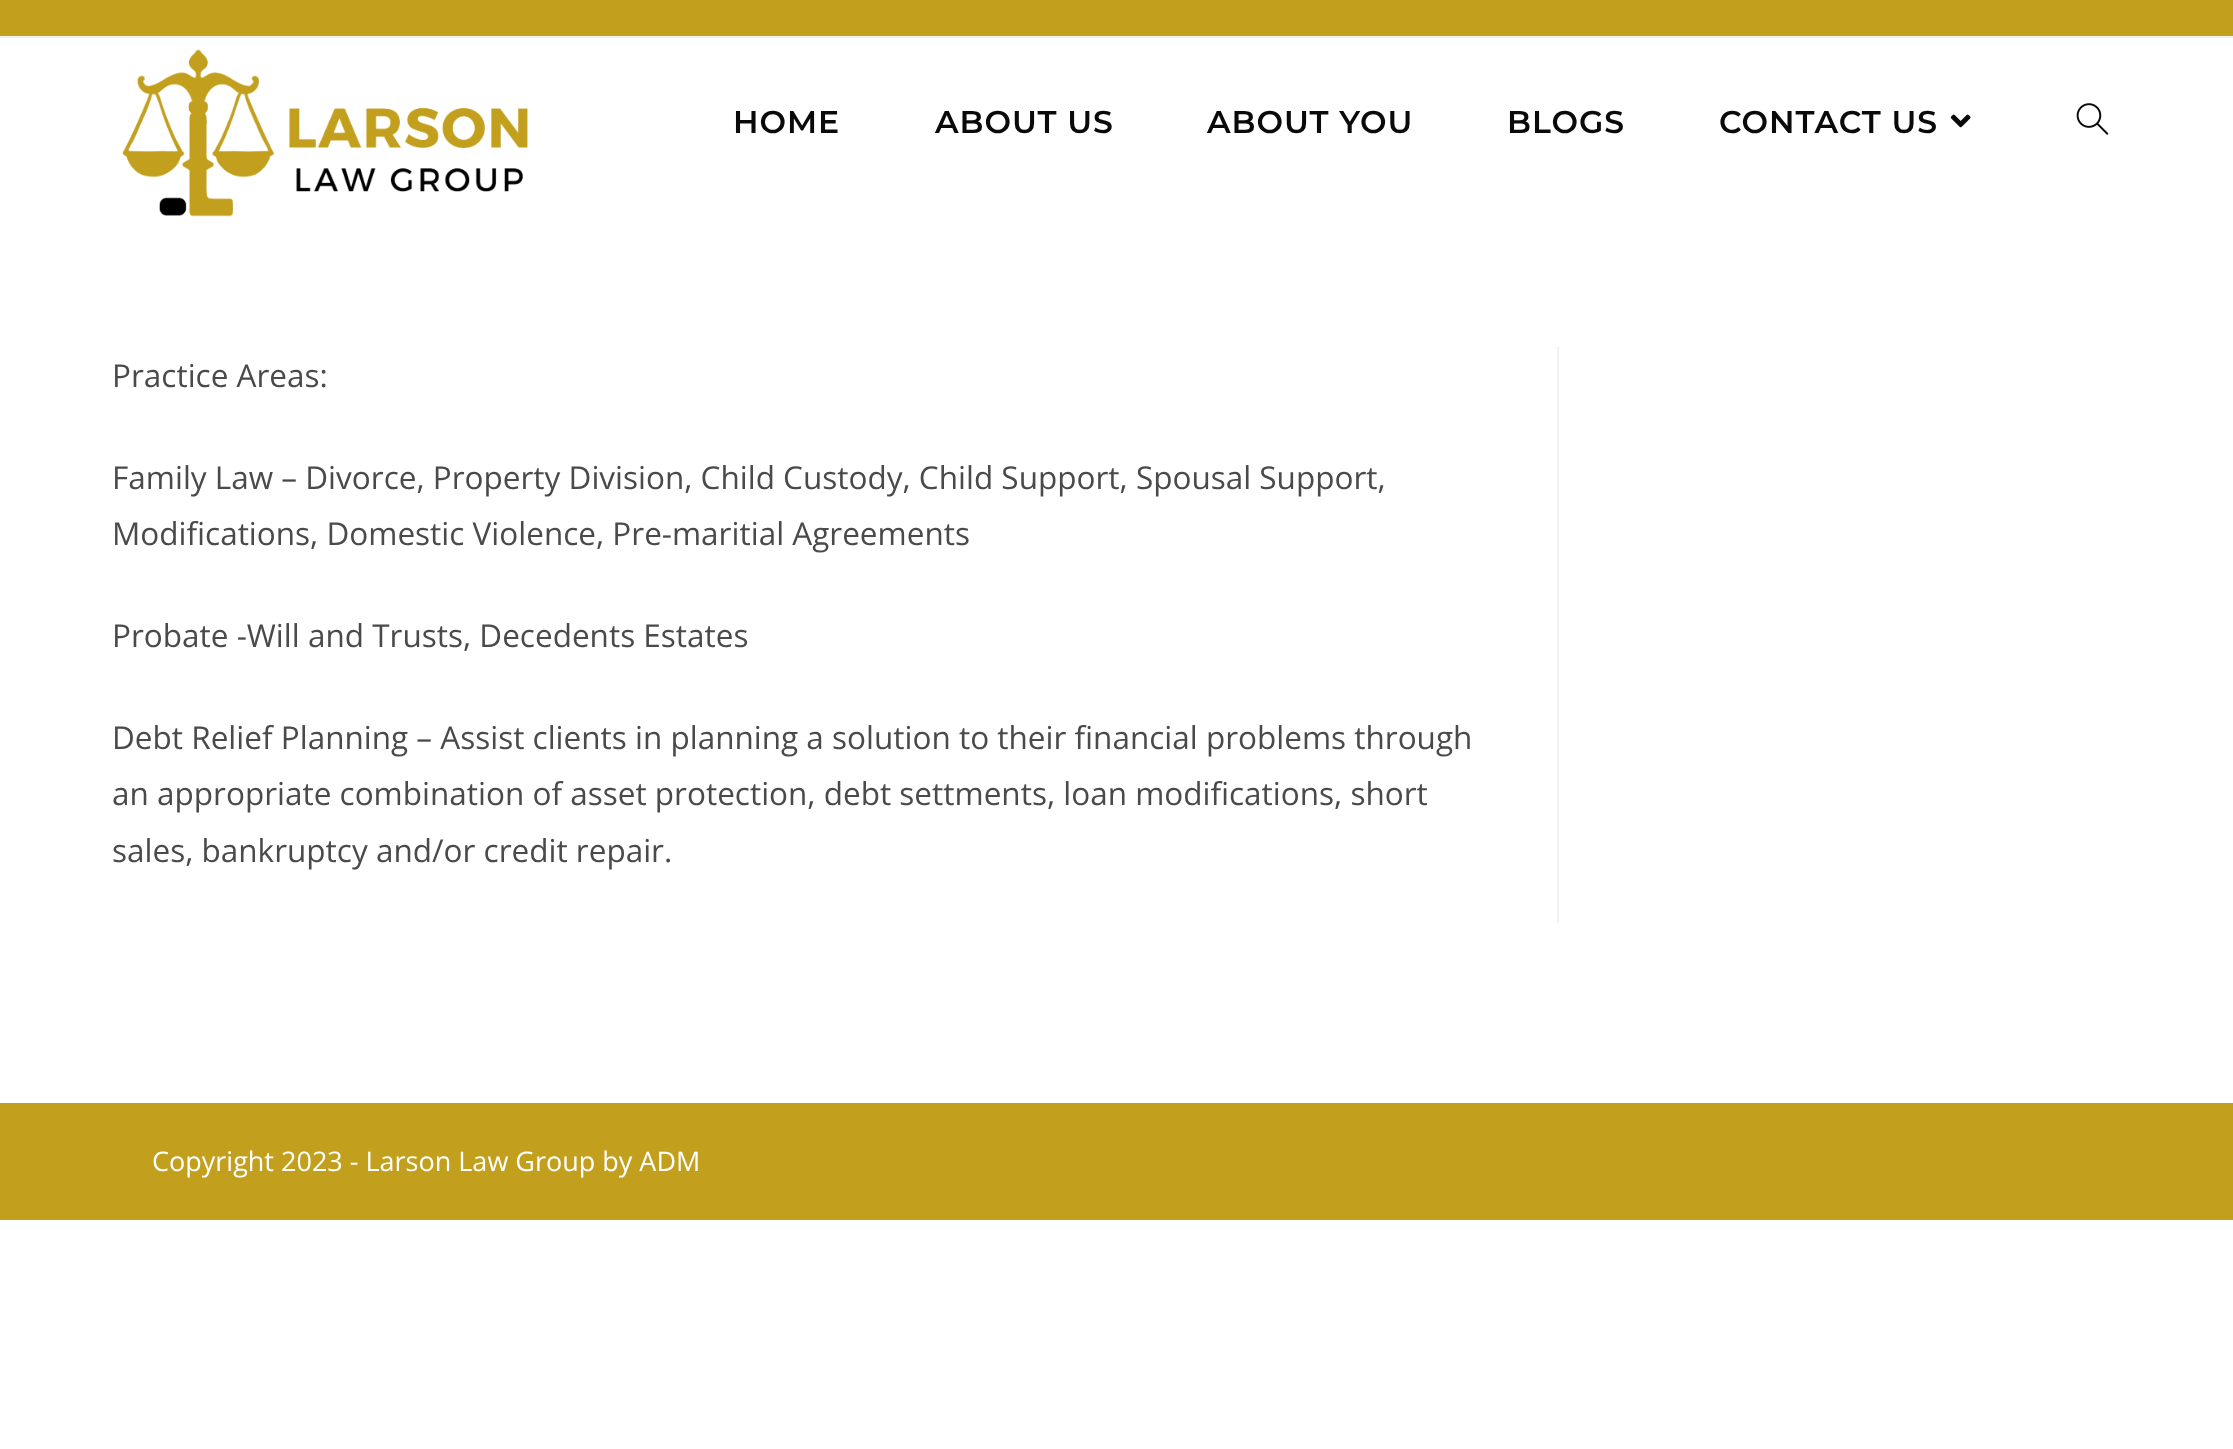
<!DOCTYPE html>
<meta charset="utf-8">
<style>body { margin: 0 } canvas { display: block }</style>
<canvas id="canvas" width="2233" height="1449"></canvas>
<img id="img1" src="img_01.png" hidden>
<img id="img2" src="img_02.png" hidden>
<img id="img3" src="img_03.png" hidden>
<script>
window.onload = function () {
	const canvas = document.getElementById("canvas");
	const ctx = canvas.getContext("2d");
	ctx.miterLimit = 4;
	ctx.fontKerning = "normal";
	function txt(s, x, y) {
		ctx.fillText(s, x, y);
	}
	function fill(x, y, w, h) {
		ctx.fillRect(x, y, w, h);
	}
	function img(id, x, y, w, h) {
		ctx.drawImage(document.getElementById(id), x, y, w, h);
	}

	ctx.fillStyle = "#FFFFFF";
	fill(0, 0, 2233, 1449);
	ctx.fillStyle = "#C39F1E";
	fill(0, 0, 2233, 36);
	ctx.fillStyle = "#F1F1F1";
	fill(0, 36, 2233, 2);
	img("img1", 122, 49, 406, 168);
	img("img2", 1950, 114, 21, 14);
	img("img3", 2076, 103, 33, 32);
	fill(1557, 347, 2, 576);
	ctx.fillStyle = "#C39F1E";
	fill(0, 1103, 2233, 117);
	ctx.letterSpacing = "1px";
	ctx.font = "600 31.5px Montserrat";
	ctx.fillStyle = "#0A0A0A";
	txt("HOME", 733, 133);
	txt("ABOUT US", 935, 133);
	txt("ABOUT YOU", 1207, 133);
	txt("BLOGS", 1507, 133);
	txt("CONTACT US", 1719, 133);
	ctx.letterSpacing = "0px";
	ctx.font = "31.5px Open Sans";
	ctx.fillStyle = "#4A4A4A";
	txt("Practice Areas:", 112, 387);
	txt("Family Law – Divorce, Property Division, Child Custody, Child Support, Spousal Support,", 112, 489);
	txt("Modifications, Domestic Violence, Pre-maritial Agreements", 112, 545);
	txt("Probate -Will and Trusts, Decedents Estates", 112, 647);
	txt("Debt Relief Planning – Assist clients in planning a solution to their financial problems through", 112, 749);
	txt("an appropriate combination of asset protection, debt settments, loan modifications, short", 112, 805);
	txt("sales, bankruptcy and/or credit repair.", 112, 862);
	ctx.font = "27px Open Sans";
	ctx.fillStyle = "#FFFFFF";
	txt("Copyright 2023 - Larson Law Group by ADM", 152, 1171);
};
</script>
